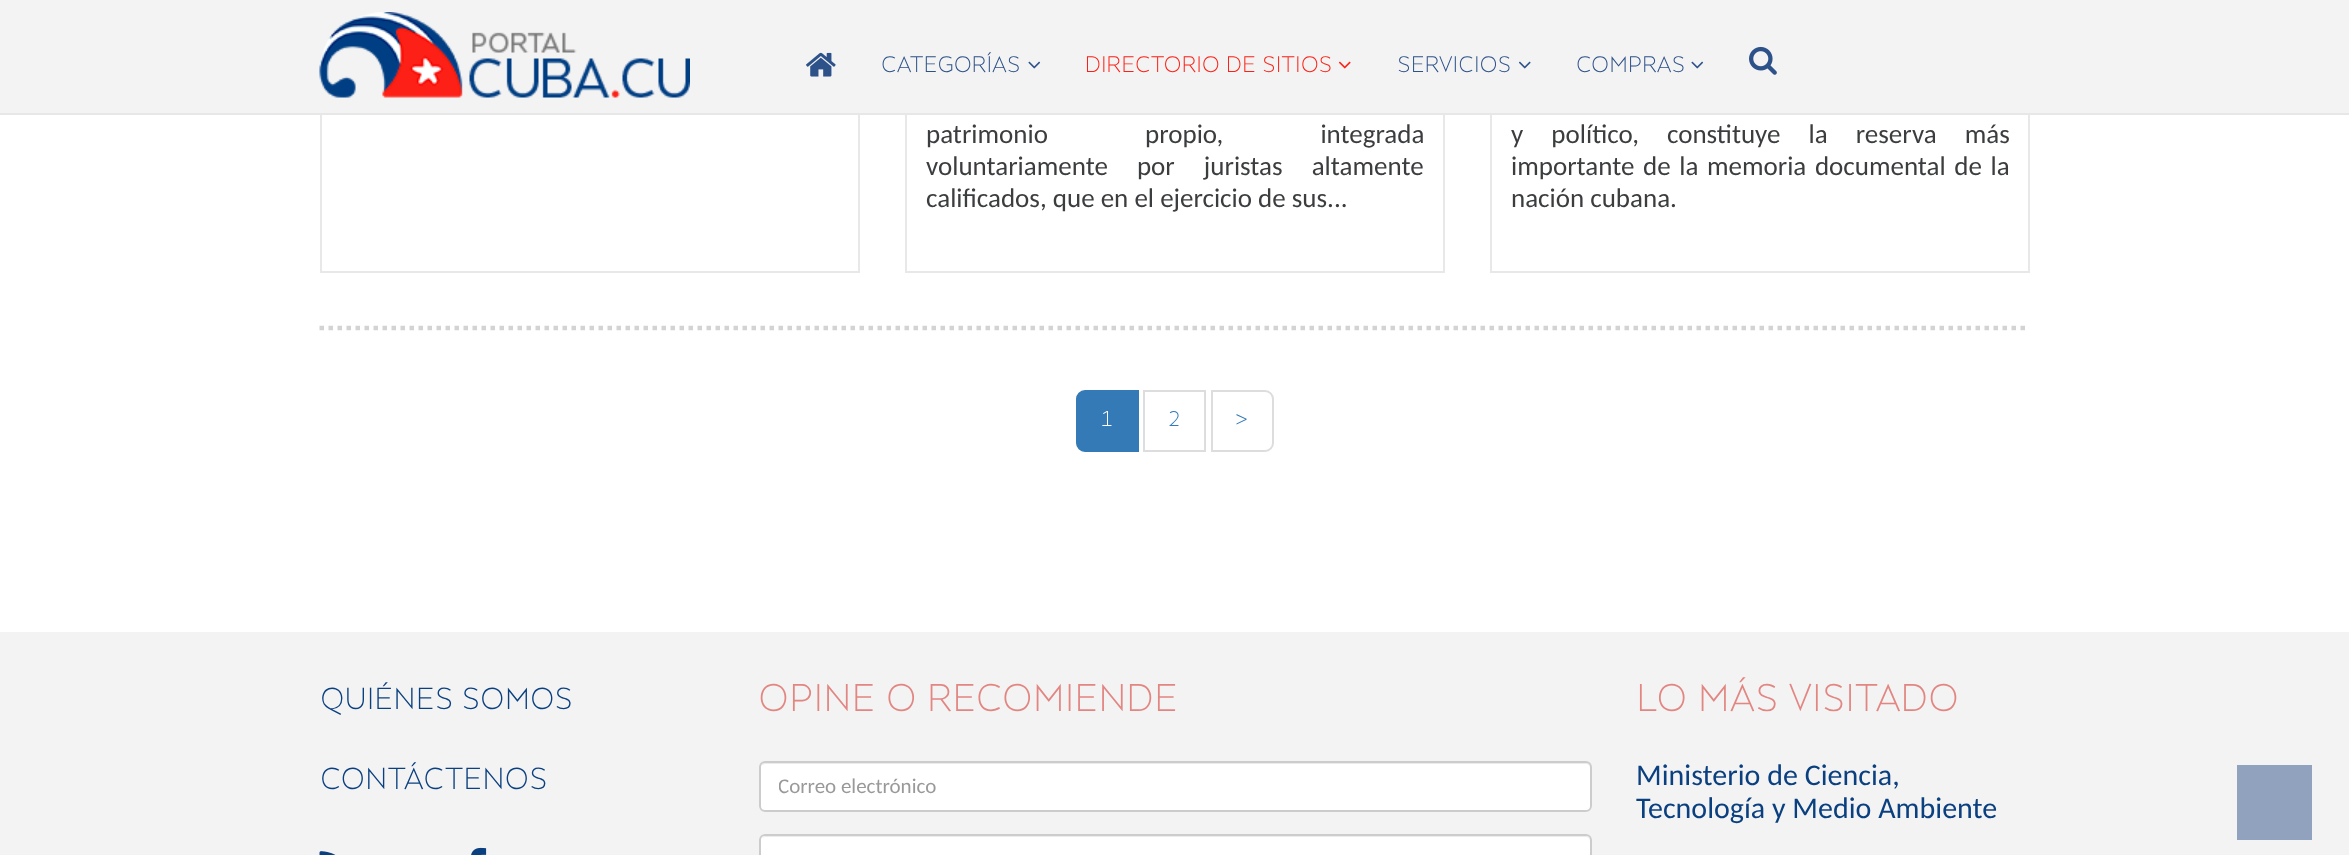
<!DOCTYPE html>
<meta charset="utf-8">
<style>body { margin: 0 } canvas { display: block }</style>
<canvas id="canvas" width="2349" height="855"></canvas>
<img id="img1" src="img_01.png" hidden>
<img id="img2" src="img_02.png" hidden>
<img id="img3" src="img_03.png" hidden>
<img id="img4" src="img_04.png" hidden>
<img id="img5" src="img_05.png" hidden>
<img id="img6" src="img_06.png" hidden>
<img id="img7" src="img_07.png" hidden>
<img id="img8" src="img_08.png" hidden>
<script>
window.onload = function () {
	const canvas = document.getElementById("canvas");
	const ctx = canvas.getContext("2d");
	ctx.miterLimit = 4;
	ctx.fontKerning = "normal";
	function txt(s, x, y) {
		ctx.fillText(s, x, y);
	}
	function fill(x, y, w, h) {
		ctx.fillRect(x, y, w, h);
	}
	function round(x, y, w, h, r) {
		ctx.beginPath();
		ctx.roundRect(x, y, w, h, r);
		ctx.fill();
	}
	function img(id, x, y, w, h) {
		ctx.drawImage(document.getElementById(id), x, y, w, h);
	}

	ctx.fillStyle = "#FFFFFF";
	fill(0, 0, 2349, 855);
	ctx.strokeStyle = "#E8E8E8";
	ctx.lineWidth = 2;
	ctx.strokeRect(321, -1, 538, 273);
	ctx.strokeRect(906, -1, 538, 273);
	ctx.strokeRect(1491, -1, 538, 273);
	ctx.fillStyle = "#F3F3F3";
	fill(0, 0, 2349, 113);
	ctx.fillStyle = "#E7E7E7";
	fill(0, 113, 2349, 2);
	img("img1", 319, 12, 371, 86);
	img("img2", 806, 52, 30, 25);
	img("img3", 1028, 61, 13, 8);
	img("img4", 1338, 61, 13, 8);
	img("img5", 1518, 61, 13, 8);
	img("img3", 1691, 61, 13, 8);
	img("img6", 1749, 46, 28, 29);
	ctx.beginPath();
	ctx.moveTo(319.5, 328);
	ctx.lineTo(2029.5, 328);
	ctx.strokeStyle = "#D3D3D3";
	ctx.lineWidth = 4.5;
	ctx.setLineDash([4.5, 4.5]);
	ctx.stroke();
	ctx.fillStyle = "#337AB7";
	ctx.beginPath();
	ctx.roundRect(1077, 391, 61, 60, [8, 0, 0, 8]);
	ctx.fill();
	ctx.strokeStyle = "#337AB7";
	ctx.lineWidth = 2;
	ctx.setLineDash([]);
	ctx.stroke();
	ctx.strokeStyle = "#DDDDDD";
	ctx.strokeRect(1144, 391, 61, 60);
	ctx.beginPath();
	ctx.roundRect(1212, 391, 61, 60, [0, 8, 8, 0]);
	ctx.stroke();
	ctx.fillStyle = "#F3F3F3";
	fill(0, 632, 2349, 223);
	img("img7", 319, 851, 17, 4);
	img("img8", 471, 847, 16, 8);
	ctx.fillStyle = "#FFFFFF";
	round(759, 761, 833, 51, 6);
	ctx.fillStyle = "#ECECEC";
	ctx.beginPath();
	ctx.moveTo(765, 764);
	ctx.lineTo(1586, 764);
	ctx.bezierCurveTo(1588, 764, 1590, 766, 1590, 768);
	ctx.lineTo(1590, 767);
	ctx.bezierCurveTo(1590, 764, 1588, 762, 1585, 762);
	ctx.lineTo(766, 762);
	ctx.bezierCurveTo(764, 762, 762, 764, 761, 766);
	ctx.bezierCurveTo(762, 765, 764, 764, 765, 764);
	ctx.closePath();
	ctx.fill();
	ctx.beginPath();
	ctx.roundRect(760, 762, 831, 49, 5);
	ctx.strokeStyle = "#CCCCCC";
	ctx.stroke();
	ctx.fillStyle = "#FFFFFF";
	round(759, 834, 833, 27, 6);
	ctx.fillStyle = "#ECECEC";
	ctx.beginPath();
	ctx.moveTo(765, 837);
	ctx.lineTo(1586, 837);
	ctx.bezierCurveTo(1588, 837, 1590, 839, 1590, 842);
	ctx.lineTo(1590, 841);
	ctx.bezierCurveTo(1590, 838, 1588, 836, 1585, 836);
	ctx.lineTo(766, 836);
	ctx.bezierCurveTo(764, 836, 763, 837, 762, 838);
	ctx.closePath();
	ctx.fill();
	ctx.beginPath();
	ctx.roundRect(760, 835, 831, 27, 5);
	ctx.stroke();
	ctx.fillStyle = "#90A2BE";
	fill(2237, 765, 75, 75);
	ctx.font = "300 21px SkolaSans";
	ctx.fillStyle = "#2D5189";
	txt("CATEGORÍAS", 881, 72);
	ctx.fillStyle = "#FD2016";
	txt("DIRECTORIO DE SITIOS", 1085, 72);
	ctx.fillStyle = "#2D5189";
	txt("SERVICIOS", 1397, 72);
	txt("COMPRAS", 1576, 72);
	ctx.wordSpacing = "91px";
	ctx.font = "27px Carlito";
	ctx.fillStyle = "#3B3D3F";
	txt("patrimonio propio, integrada", 926, 143);
	ctx.wordSpacing = "23px";
	txt("voluntariamente por juristas altamente", 926, 175);
	ctx.wordSpacing = "0px";
	txt("calificados, que en el ejercicio de sus...", 926, 207);
	ctx.wordSpacing = "22px";
	txt("y político, constituye la reserva más", 1511, 143);
	ctx.wordSpacing = "2.5px";
	txt("importante de la memoria documental de la", 1511, 175);
	ctx.wordSpacing = "0px";
	txt("nación cubana.", 1511, 207);
	ctx.font = "300 20px SkolaSans";
	ctx.fillStyle = "#FFFFFF";
	txt("1", 1101, 426);
	ctx.fillStyle = "#337AB7";
	txt("2", 1168, 426);
	txt(">", 1235, 426);
	ctx.font = "300 28.5px SkolaSans";
	ctx.fillStyle = "#0B4080";
	txt("QUIÉNES SOMOS", 320, 709);
	txt("CONTÁCTENOS", 320, 789);
	ctx.font = "300 36px SkolaSans";
	ctx.fillStyle = "#E28682";
	txt("OPINE O RECOMIENDE", 758, 711);
	ctx.save();
	ctx.beginPath();
	ctx.rect(779, 774, 793, 26);
	ctx.clip();
	ctx.font = "21px Carlito";
	ctx.fillStyle = "#999999";
	txt("Correo electrónico", 778, 793);
	ctx.restore();
	txt("LO MÁS VISITADO", 1636, 711);
	ctx.font = "30px Carlito";
	ctx.fillStyle = "#0B4080";
	txt("Ministerio de Ciencia,", 1636, 785);
	txt("Tecnología y Medio Ambiente", 1636, 818);
};
</script>
